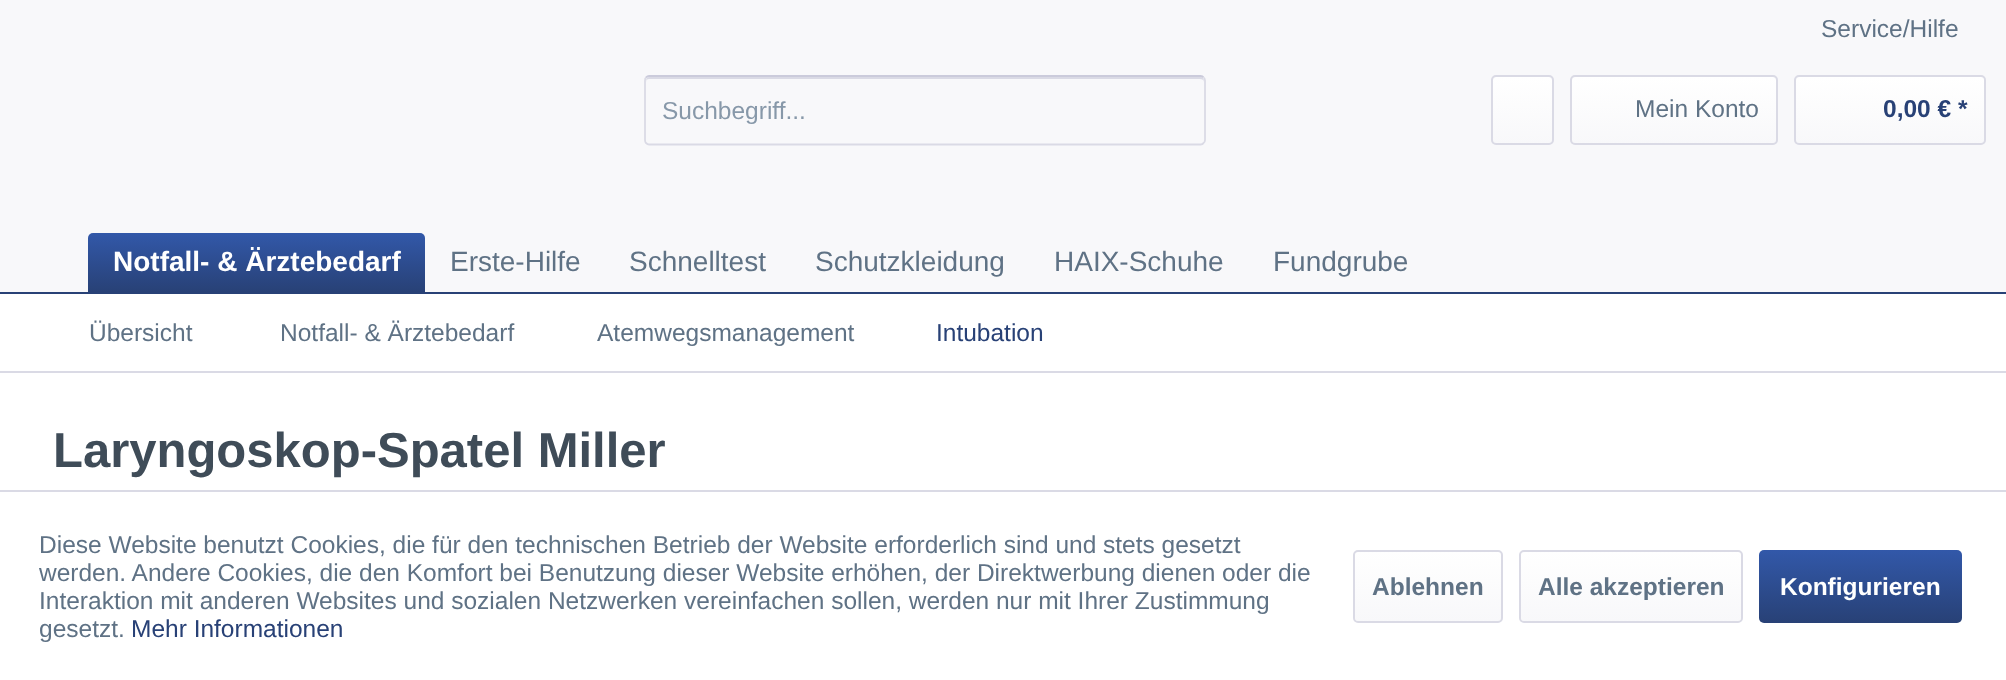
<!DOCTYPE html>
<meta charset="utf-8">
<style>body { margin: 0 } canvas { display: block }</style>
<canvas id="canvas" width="2006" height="680"></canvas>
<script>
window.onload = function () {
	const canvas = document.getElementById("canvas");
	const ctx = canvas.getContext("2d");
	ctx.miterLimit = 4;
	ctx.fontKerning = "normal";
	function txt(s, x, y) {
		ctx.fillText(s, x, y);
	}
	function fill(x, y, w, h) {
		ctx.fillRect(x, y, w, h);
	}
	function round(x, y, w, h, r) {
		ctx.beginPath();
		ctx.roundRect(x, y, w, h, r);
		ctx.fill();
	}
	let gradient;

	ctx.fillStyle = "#F8F8FA";
	fill(0, 0, 2006, 680);
	ctx.fillStyle = "#DADAE5";
	ctx.beginPath();
	ctx.moveTo(649, 79);
	ctx.lineTo(1200, 79);
	ctx.bezierCurveTo(1202, 79, 1204, 80, 1204, 82);
	ctx.bezierCurveTo(1204, 79, 1203, 77, 1200, 77);
	ctx.lineTo(650, 77);
	ctx.bezierCurveTo(647, 77, 646, 79, 646, 82);
	ctx.bezierCurveTo(646, 80, 647, 79, 649, 79);
	ctx.closePath();
	ctx.fill();
	ctx.beginPath();
	ctx.moveTo(646, 77.5);
	ctx.bezierCurveTo(647, 76.5, 648, 76, 649, 76);
	ctx.lineTo(1200.5, 76);
	ctx.bezierCurveTo(1201.5, 76, 1203, 76.5, 1203.5, 77.5);
	ctx.strokeStyle = "#CBCBDB";
	ctx.lineWidth = 1.8;
	ctx.stroke();
	ctx.beginPath();
	ctx.moveTo(1203.5, 77.5);
	ctx.bezierCurveTo(1204.5, 78, 1205, 79.5, 1205, 80.5);
	ctx.lineTo(1205, 140);
	ctx.bezierCurveTo(1205, 141, 1204.5, 142.5, 1203.5, 143);
	ctx.bezierCurveTo(1203, 144, 1201.5, 144.5, 1200.5, 144.5);
	ctx.lineTo(649, 144.5);
	ctx.bezierCurveTo(648, 144.5, 647, 144, 646, 143);
	ctx.bezierCurveTo(645.5, 142.5, 645, 141, 645, 140);
	ctx.lineTo(645, 80.5);
	ctx.bezierCurveTo(645, 79.5, 645.5, 78, 646, 77.5);
	ctx.strokeStyle = "#DADAE5";
	ctx.stroke();
	gradient = ctx.createLinearGradient(1523, 77, 1523, 144);
	gradient.addColorStop(0, "#FFFFFF");
	gradient.addColorStop(1, "#F8F8FA");
	ctx.fillStyle = gradient;
	round(1493, 77, 59, 67, 4);
	ctx.beginPath();
	ctx.roundRect(1492, 76, 61, 68, 4);
	ctx.lineWidth = 2;
	ctx.stroke();
	gradient = ctx.createLinearGradient(1674, 77, 1674, 144);
	gradient.addColorStop(0, "#FFFFFF");
	gradient.addColorStop(1, "#F8F8FA");
	ctx.fillStyle = gradient;
	round(1572, 77, 204, 67, 4);
	ctx.beginPath();
	ctx.roundRect(1571, 76, 206, 68, 4);
	ctx.stroke();
	gradient = ctx.createLinearGradient(1890, 77, 1890, 144);
	gradient.addColorStop(0, "#FFFFFF");
	gradient.addColorStop(1, "#F8F8FA");
	ctx.fillStyle = gradient;
	round(1796, 77, 189, 67, 4);
	ctx.beginPath();
	ctx.roundRect(1795, 76, 190, 68, 4);
	ctx.stroke();
	ctx.fillStyle = "#284176";
	fill(0, 292, 2006, 2);
	gradient = ctx.createLinearGradient(256, 233, 256, 292);
	gradient.addColorStop(0, "#3258A9");
	gradient.addColorStop(1, "#284176");
	ctx.fillStyle = gradient;
	ctx.beginPath();
	ctx.roundRect(88, 233, 337, 59, [5, 5, 0, 0]);
	ctx.fill();
	ctx.fillStyle = "#FFFFFF";
	fill(0, 294, 2006, 196);
	ctx.fillStyle = "#DADAE5";
	fill(0, 371, 2006, 2);
	ctx.fillStyle = "#FFFFFF";
	fill(0, 492, 2006, 188);
	ctx.fillStyle = "#DADAE5";
	fill(0, 490, 2006, 2);
	gradient = ctx.createLinearGradient(1428, 551, 1428, 621);
	gradient.addColorStop(0, "#FFFFFF");
	gradient.addColorStop(1, "#F8F8FA");
	ctx.fillStyle = gradient;
	round(1355, 551, 147, 70, 4);
	ctx.beginPath();
	ctx.roundRect(1354, 551, 148, 71, 4);
	ctx.stroke();
	gradient = ctx.createLinearGradient(1631, 551, 1631, 621);
	gradient.addColorStop(0, "#FFFFFF");
	gradient.addColorStop(1, "#F8F8FA");
	ctx.fillStyle = gradient;
	round(1521, 551, 220, 70, 4);
	ctx.beginPath();
	ctx.roundRect(1520, 551, 222, 71, 4);
	ctx.stroke();
	gradient = ctx.createLinearGradient(1860, 550, 1860, 623);
	gradient.addColorStop(0, "#3258A9");
	gradient.addColorStop(1, "#284176");
	ctx.fillStyle = gradient;
	round(1759, 550, 203, 73, 5);
	ctx.font = "24.5px Liberation Sans";
	ctx.fillStyle = "#5F7285";
	txt("Service/Hilfe", 1821, 37);
	ctx.fillStyle = "#8798A9";
	txt("Suchbegriff...", 662, 119);
	ctx.fillStyle = "#5F7285";
	txt("Mein Konto", 1635, 117);
	ctx.font = "bold 24.5px Liberation Sans";
	ctx.fillStyle = "#284176";
	txt("0,00 € *", 1883, 117);
	ctx.font = "bold 28px Liberation Sans";
	ctx.fillStyle = "#FFFFFF";
	txt("Notfall- & Ärztebedarf", 113, 271);
	ctx.font = "28px Liberation Sans";
	ctx.fillStyle = "#5F7285";
	txt("Erste-Hilfe", 450, 271);
	txt("Schnelltest", 629, 271);
	txt("Schutzkleidung", 815, 271);
	txt("HAIX-Schuhe", 1054, 271);
	txt("Fundgrube", 1273, 271);
	ctx.font = "24.5px Liberation Sans";
	txt("Übersicht", 89, 341);
	txt("Notfall- & Ärztebedarf", 280, 341);
	txt("Atemwegsmanagement", 597, 341);
	ctx.fillStyle = "#284176";
	txt("Intubation", 936, 341);
	ctx.font = "bold 49px Liberation Sans";
	ctx.fillStyle = "#3F4C58";
	txt("Laryngoskop-Spatel Miller", 53, 467);
	ctx.font = "24.5px Liberation Sans";
	ctx.fillStyle = "#5F7285";
	txt("Diese Website benutzt Cookies, die für den technischen Betrieb der Website erforderlich sind und stets gesetzt", 39, 553);
	txt("werden. Andere Cookies, die den Komfort bei Benutzung dieser Website erhöhen, der Direktwerbung dienen oder die", 39, 581);
	txt("Interaktion mit anderen Websites und sozialen Netzwerken vereinfachen sollen, werden nur mit Ihrer Zustimmung", 39, 609);
	txt("gesetzt.", 39, 637);
	ctx.fillStyle = "#284176";
	txt("Mehr Informationen", 131, 637);
	ctx.font = "bold 24.5px Liberation Sans";
	ctx.fillStyle = "#5F7285";
	txt("Ablehnen", 1372, 595);
	txt("Alle akzeptieren", 1538, 595);
	ctx.fillStyle = "#FFFFFF";
	txt("Konfigurieren", 1780, 595);
};
</script>
